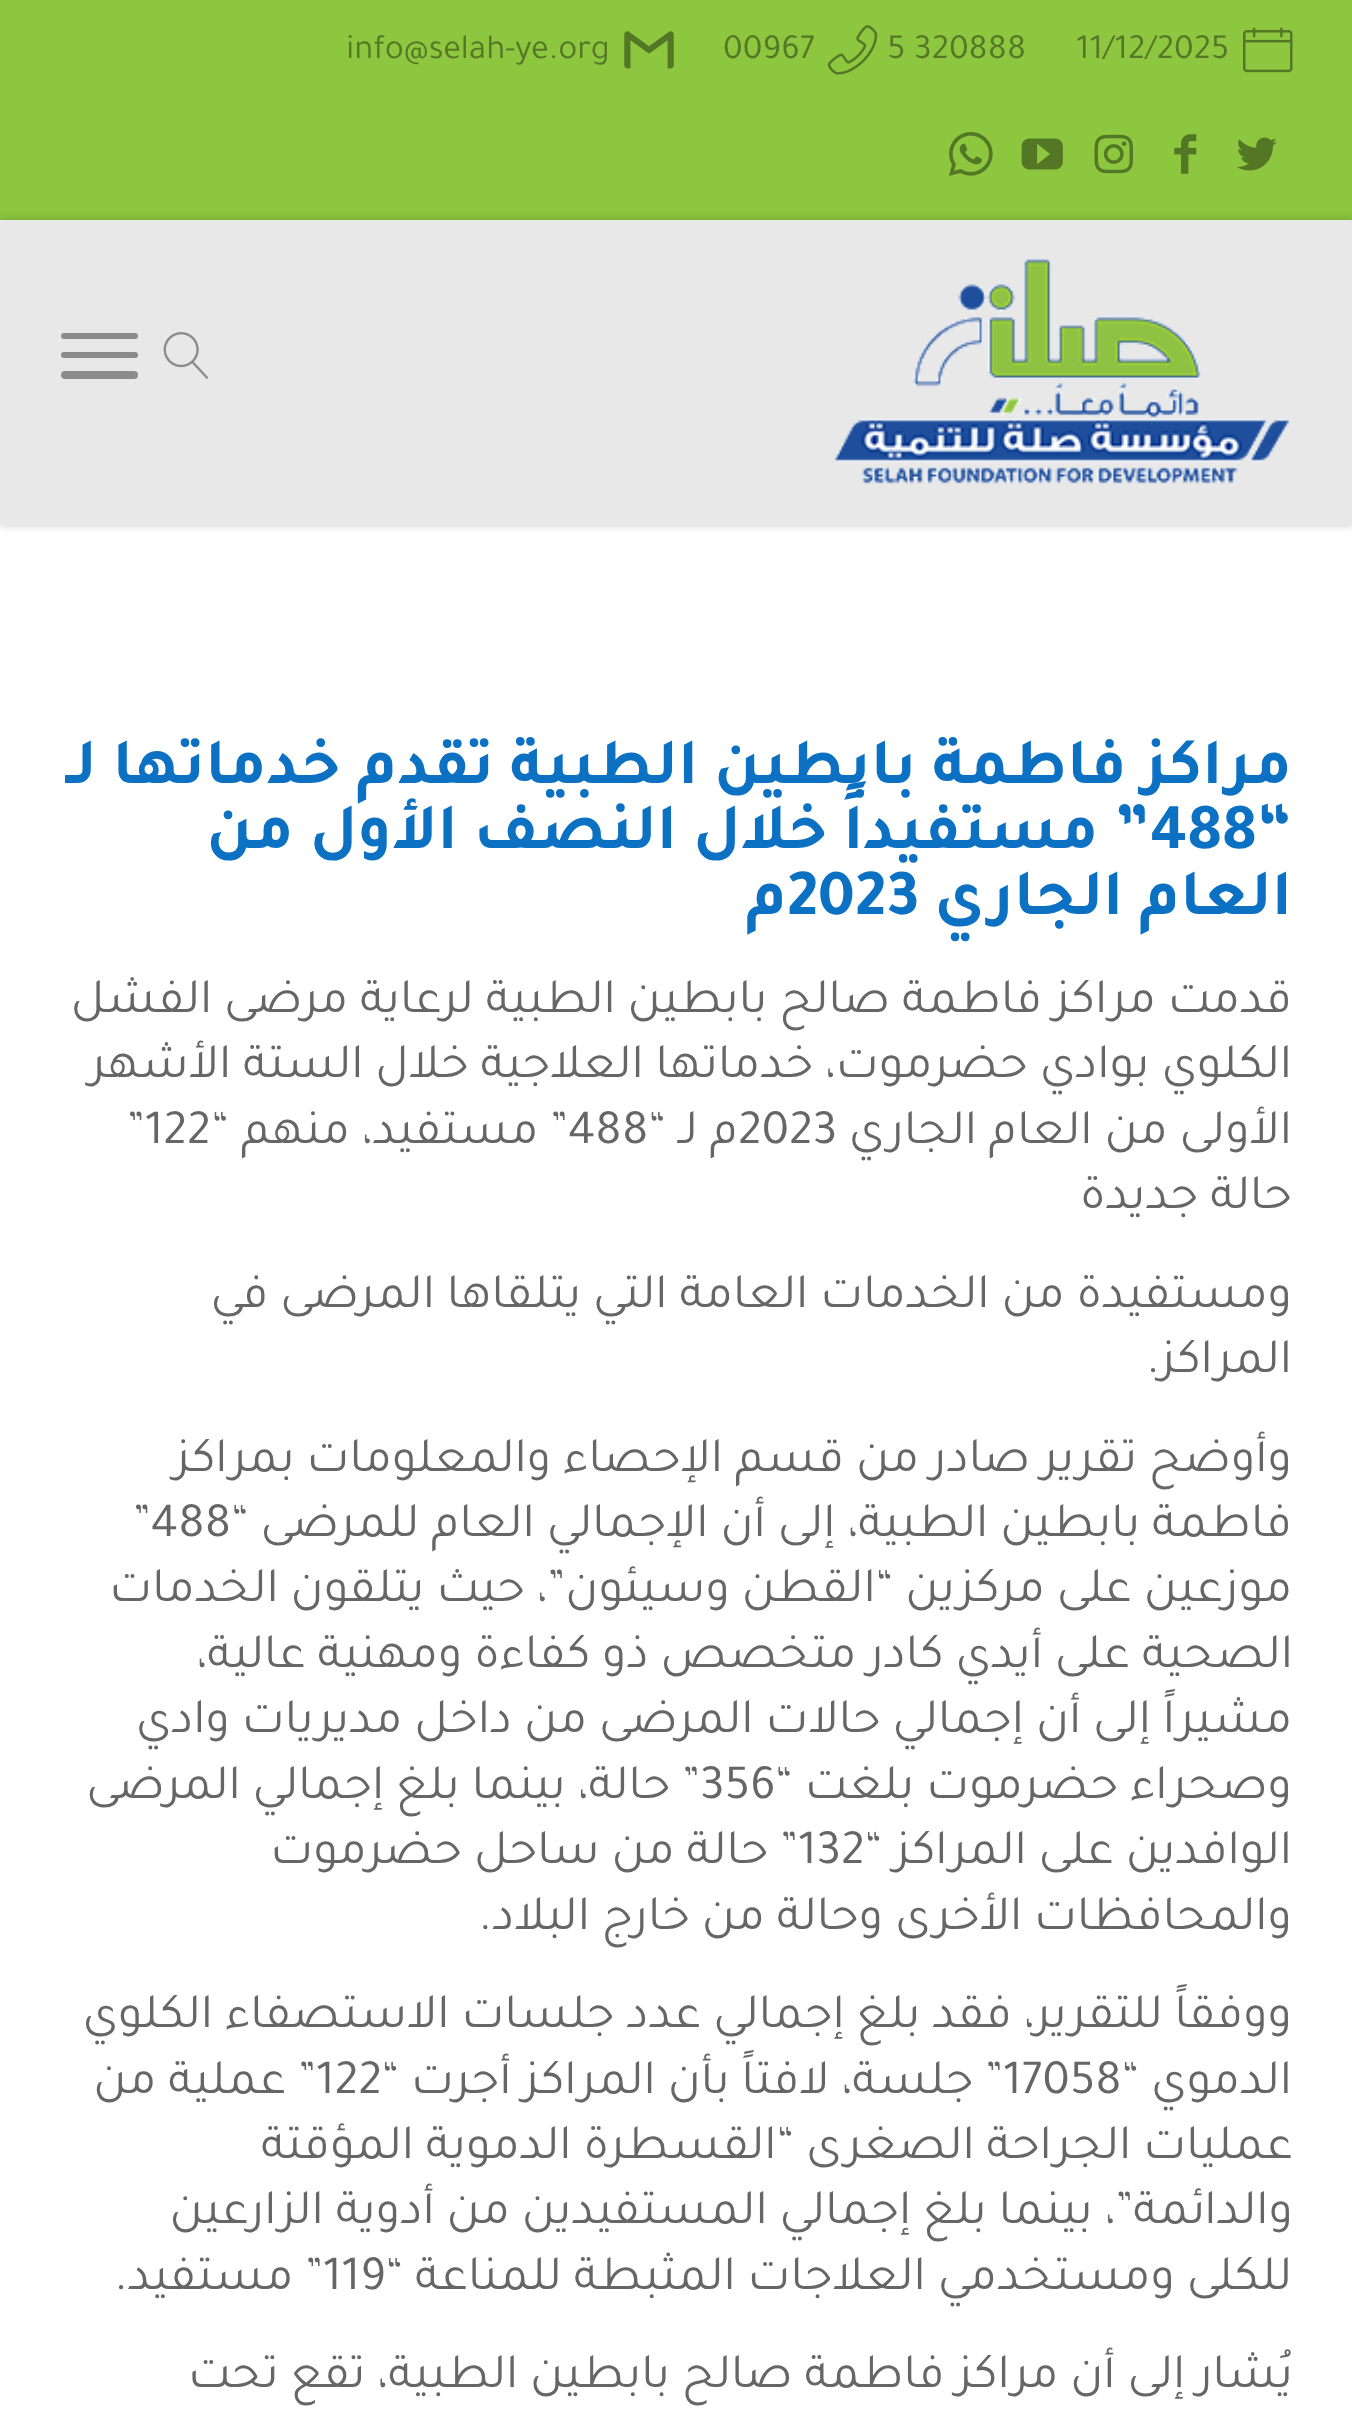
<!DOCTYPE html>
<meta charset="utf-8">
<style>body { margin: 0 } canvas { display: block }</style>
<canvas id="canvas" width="1352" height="2428"></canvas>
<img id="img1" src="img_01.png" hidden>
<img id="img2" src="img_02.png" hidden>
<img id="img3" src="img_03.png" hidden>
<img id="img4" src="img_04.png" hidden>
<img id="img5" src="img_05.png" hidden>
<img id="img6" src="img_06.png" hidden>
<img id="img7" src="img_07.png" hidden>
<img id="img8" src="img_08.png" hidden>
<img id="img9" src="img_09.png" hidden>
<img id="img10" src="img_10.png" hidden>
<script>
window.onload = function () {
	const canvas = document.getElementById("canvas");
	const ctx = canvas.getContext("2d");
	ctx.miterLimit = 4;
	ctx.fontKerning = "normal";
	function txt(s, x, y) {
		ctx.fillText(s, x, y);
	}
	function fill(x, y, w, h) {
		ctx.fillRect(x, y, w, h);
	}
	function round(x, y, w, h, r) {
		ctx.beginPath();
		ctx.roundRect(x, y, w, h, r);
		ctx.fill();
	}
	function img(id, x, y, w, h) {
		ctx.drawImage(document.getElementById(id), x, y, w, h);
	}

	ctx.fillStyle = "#FFFFFF";
	fill(0, 0, 1352, 2428);
	ctx.fillStyle = "#8DC63F";
	fill(0, 0, 1352, 220);
	img("img1", 1243, 27, 50, 46);
	img("img2", 827, 25, 51, 50);
	img("img3", 624, 31, 50, 38);
	img("img4", 1236, 137, 41, 34);
	img("img5", 1174, 134, 23, 40);
	img("img6", 1094, 134, 39, 40);
	img("img7", 1021, 138, 42, 32);
	img("img8", 949, 132, 44, 44);
	ctx.fillStyle = "rgba(0, 0, 0, 0.22)";
	ctx.filter = "blur(4px)";
	ctx.beginPath();
	ctx.rect(0, 220, 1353, 305);
	ctx.fill();
	ctx.filter = "none";
	ctx.fillStyle = "#E8E8E8";
	fill(0, 220, 1352, 305);
	img("img9", 834, 259, 455, 225);
	img("img10", 163, 332, 45, 47);
	ctx.fillStyle = "#8B8B8B";
	round(61, 371, 77, 8, 4);
	round(61, 333, 77, 6, 3);
	round(61, 352, 77, 6, 3);
	ctx.font = "35.75px Tajawal";
	ctx.fillStyle = "#557726";
	txt("11/12/2025", 1076, 58);
	txt("5 320888", 887, 58);
	txt("00967", 723, 58);
	txt("info@selah-ye.org", 346, 58);
	ctx.direction = "rtl";
	ctx.font = "bold 66px Tajawal";
	ctx.fillStyle = "#0C71C3";
	txt("مراكز فاطمة بابطين الطبية تقدم خدماتها لـ", 1292, 783);
	ctx.direction = "ltr";
	txt("488“", 1150, 848);
	ctx.direction = "rtl";
	txt("” مستفيداً خلال النصف الأول من", 1150, 848);
	txt("العام الجاري", 1292, 914);
	ctx.direction = "ltr";
	txt("2023", 787, 914);
	ctx.direction = "rtl";
	txt("م", 787, 914);
	ctx.font = "49.5px Tajawal";
	ctx.fillStyle = "#666666";
	txt("قدمت مراكز فاطمة صالح بابطين الطبية لرعاية مرضى الفشل", 1292, 1012);
	txt("الكلوي بوادي حضرموت، خدماتها العلاجية خلال الستة الأشهر", 1292, 1077);
	txt("الأولى من العام الجاري", 1292, 1143);
	ctx.direction = "ltr";
	txt("2023", 738, 1143);
	ctx.direction = "rtl";
	txt("م لـ “", 738, 1143);
	ctx.direction = "ltr";
	txt("488", 568, 1143);
	ctx.direction = "rtl";
	txt("” مستفيد، منهم “", 568, 1143);
	ctx.direction = "ltr";
	txt("”122", 127, 1143);
	ctx.direction = "rtl";
	txt("حالة جديدة", 1292, 1208);
	txt("ومستفيدة من الخدمات العامة التي يتلقاها المرضى في", 1292, 1307);
	txt("المراكز.", 1292, 1372);
	txt("وأوضح تقرير صادر من قسم الإحصاء والمعلومات بمراكز", 1292, 1471);
	txt("فاطمة بابطين الطبية، إلى أن الإجمالي العام للمرضى “", 1292, 1536);
	ctx.direction = "ltr";
	txt("”488", 133, 1536);
	ctx.direction = "rtl";
	txt("موزعين على مركزين “القطن وسيئون”، حيث يتلقون الخدمات", 1292, 1601);
	txt("الصحية على أيدي كادر متخصص ذو كفاءة ومهنية عالية،", 1293, 1667);
	txt("مشيراً إلى أن إجمالي حالات المرضى من داخل مديريات وادي", 1292, 1732);
	txt("وصحراء حضرموت بلغت “", 1292, 1798);
	ctx.direction = "ltr";
	txt("356", 700, 1798);
	ctx.direction = "rtl";
	txt("” حالة، بينما بلغ إجمالي المرضى", 700, 1798);
	txt("الوافدين على المراكز “", 1292, 1863);
	ctx.direction = "ltr";
	txt("132", 798, 1863);
	ctx.direction = "rtl";
	txt("” حالة من ساحل حضرموت", 798, 1863);
	txt("والمحافظات الأخرى وحالة من خارج البلاد.", 1292, 1929);
	txt("ووفقاً للتقرير، فقد بلغ إجمالي عدد جلسات الاستصفاء الكلوي", 1292, 2027);
	txt("الدموي “", 1292, 2093);
	ctx.direction = "ltr";
	txt("17058", 1003, 2093);
	ctx.direction = "rtl";
	txt("” جلسة، لافتاً بأن المراكز أجرت “", 1003, 2093);
	ctx.direction = "ltr";
	txt("122", 316, 2093);
	ctx.direction = "rtl";
	txt("” عملية من", 316, 2093);
	txt("عمليات الجراحة الصغرى “القسطرة الدموية المؤقتة", 1293, 2158);
	txt("والدائمة”، بينما بلغ إجمالي المستفيدين من أدوية الزارعين", 1293, 2223);
	txt("للكلى ومستخدمي العلاجات المثبطة للمناعة “", 1292, 2289);
	ctx.direction = "ltr";
	txt("119", 323, 2289);
	ctx.direction = "rtl";
	txt("” مستفيد.", 323, 2289);
	txt("يُشار إلى أن مراكز فاطمة صالح بابطين الطبية، تقع تحت", 1293, 2387);
};
</script>
